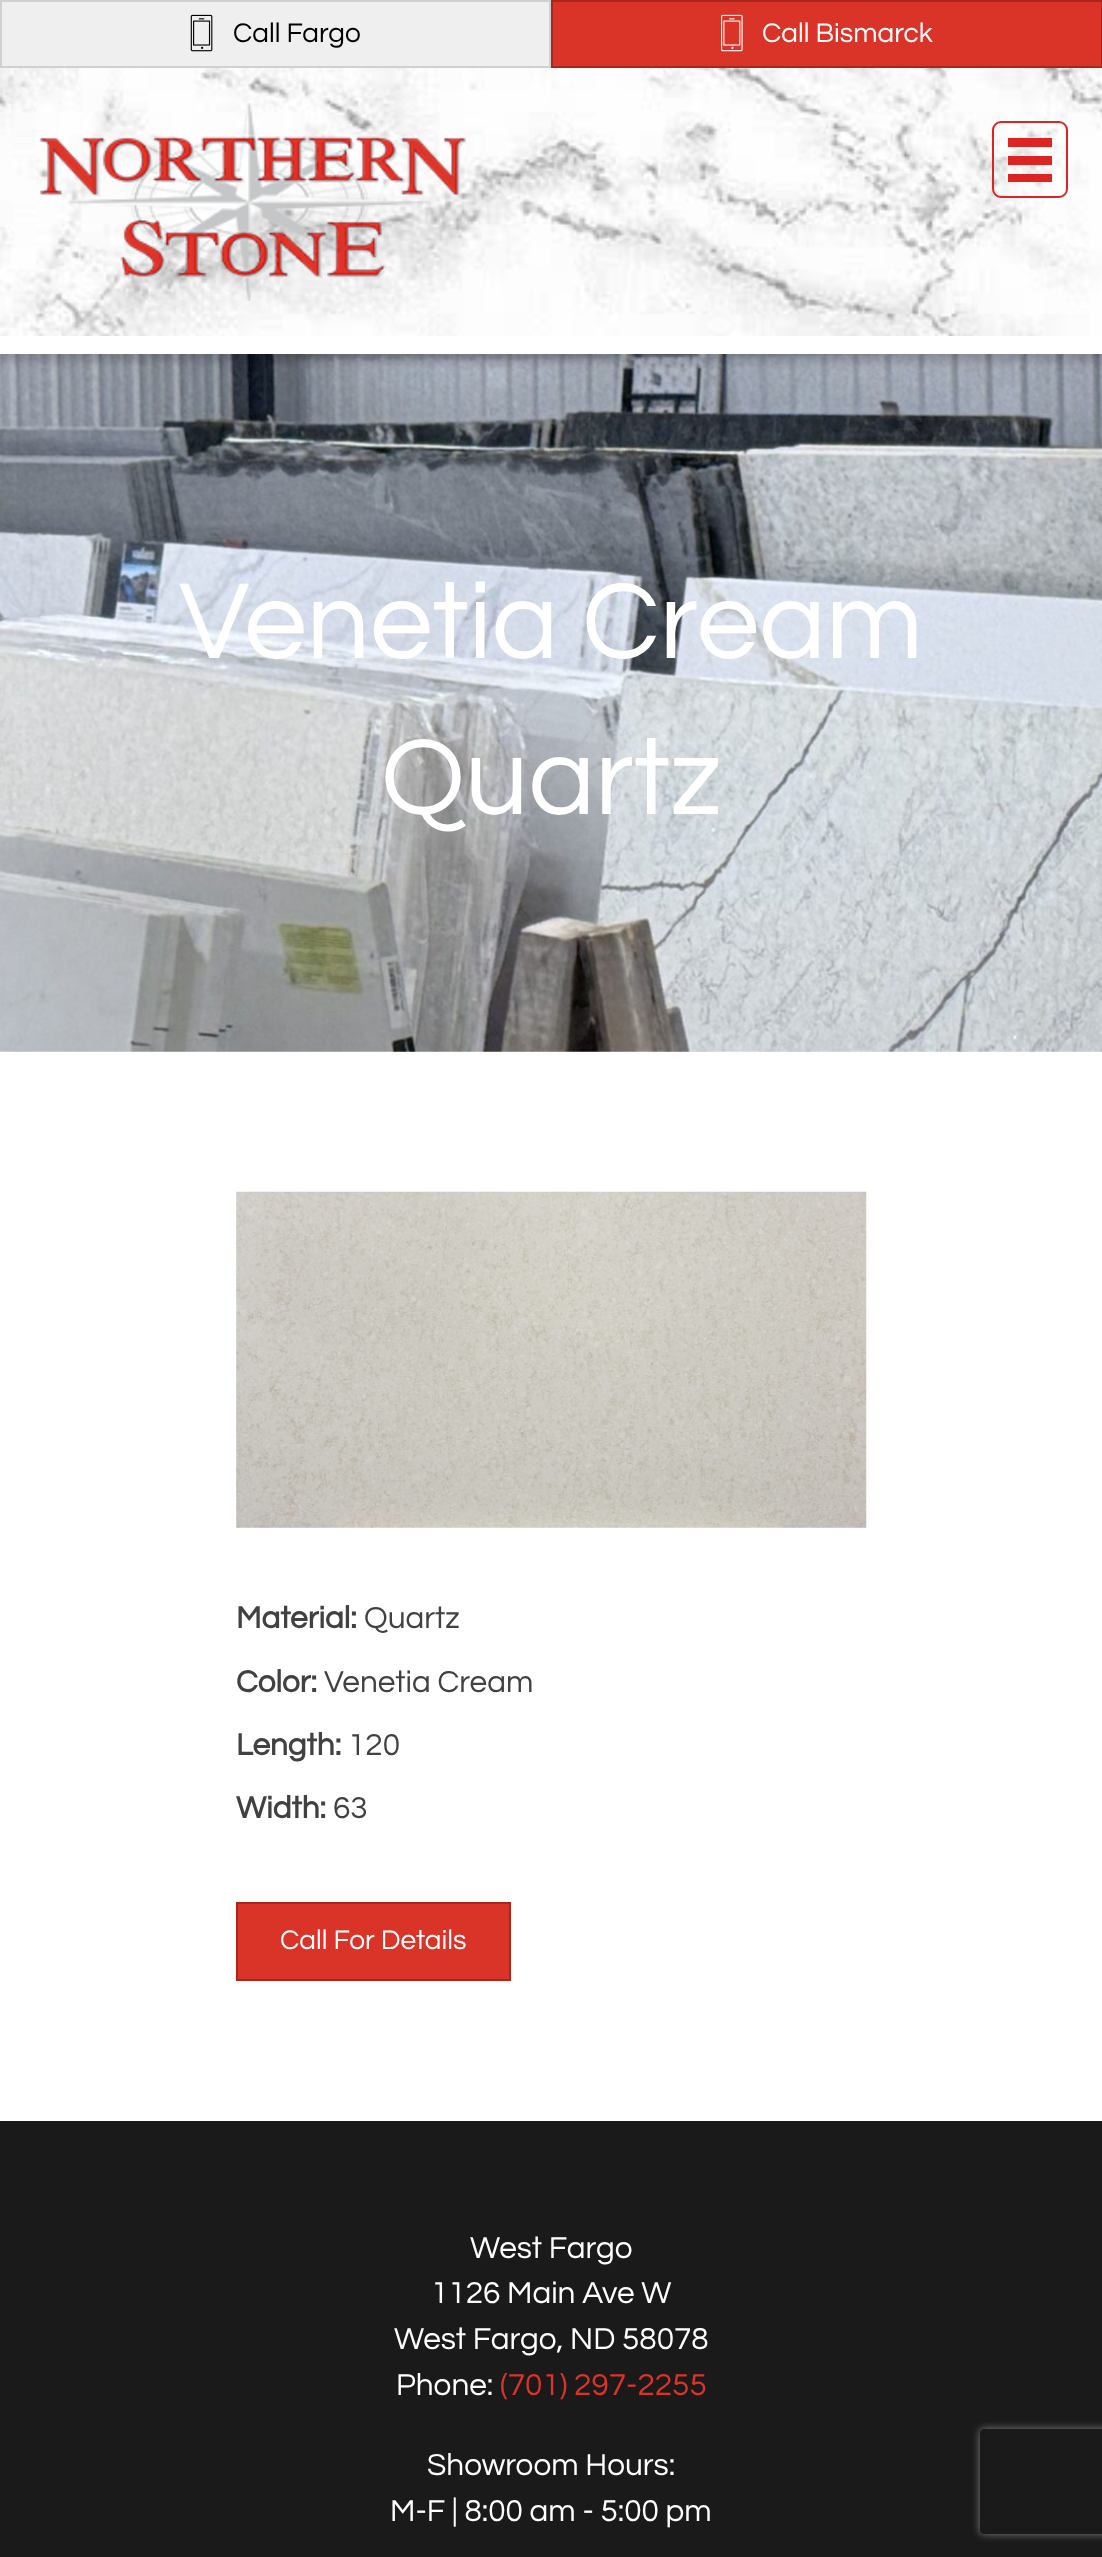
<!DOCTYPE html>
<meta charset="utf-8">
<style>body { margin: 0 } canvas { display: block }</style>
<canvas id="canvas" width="1102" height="2557"></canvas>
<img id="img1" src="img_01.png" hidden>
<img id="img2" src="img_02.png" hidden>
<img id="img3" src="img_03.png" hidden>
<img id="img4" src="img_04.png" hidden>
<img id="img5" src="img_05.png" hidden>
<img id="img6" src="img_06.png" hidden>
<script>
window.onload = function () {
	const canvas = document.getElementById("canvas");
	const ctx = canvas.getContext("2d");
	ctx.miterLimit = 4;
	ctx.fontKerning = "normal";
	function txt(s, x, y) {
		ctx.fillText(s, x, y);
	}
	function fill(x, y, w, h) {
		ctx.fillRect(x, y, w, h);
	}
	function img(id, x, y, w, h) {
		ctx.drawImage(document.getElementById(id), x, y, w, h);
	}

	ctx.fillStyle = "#FFFFFF";
	fill(0, 0, 1102, 2557);
	img("img1", 0, 68, 1102, 268);
	ctx.fillStyle = "#EFEFEF";
	ctx.beginPath();
	ctx.rect(1, 1, 549, 66);
	ctx.fill();
	ctx.strokeStyle = "#D0D0D0";
	ctx.lineWidth = 2;
	ctx.stroke();
	img("img2", 190, 14, 23, 38);
	ctx.fillStyle = "#DA3429";
	ctx.beginPath();
	ctx.rect(552, 1, 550, 66);
	ctx.fill();
	ctx.strokeStyle = "#A9261D";
	ctx.stroke();
	img("img3", 721, 14, 22, 38);
	img("img4", 39, 103, 428, 198);
	ctx.beginPath();
	ctx.roundRect(993, 122, 74, 75, 8);
	ctx.strokeStyle = "#DB2525";
	ctx.stroke();
	ctx.fillStyle = "#DB2525";
	fill(1008, 138, 44, 9);
	fill(1008, 156, 44, 9);
	fill(1008, 174, 44, 8);
	img("img5", 0, 354, 1102, 698);
	ctx.fillStyle = "rgba(0, 0, 0, 0.16)";
	ctx.filter = "blur(4.5px)";
	ctx.beginPath();
	ctx.rect(0, 345, 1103, 17);
	ctx.fill();
	ctx.filter = "none";
	ctx.fillStyle = "#FFFFFF";
	fill(0, 338, 1102, 16);
	img("img6", 236, 1191, 631, 337);
	ctx.fillStyle = "#DA3429";
	ctx.beginPath();
	ctx.rect(237, 1903, 273, 77);
	ctx.fill();
	ctx.strokeStyle = "#A9261D";
	ctx.stroke();
	ctx.fillStyle = "#1A1A1A";
	fill(0, 2121, 1102, 436);
	ctx.save();
	ctx.beginPath();
	ctx.moveTo(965, 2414);
	ctx.lineTo(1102, 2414);
	ctx.lineTo(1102, 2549);
	ctx.lineTo(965, 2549);
	ctx.closePath();
	ctx.moveTo(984, 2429);
	ctx.lineTo(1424, 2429);
	ctx.bezierCurveTo(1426, 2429, 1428, 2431, 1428, 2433);
	ctx.lineTo(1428, 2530);
	ctx.bezierCurveTo(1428, 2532, 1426, 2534, 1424, 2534);
	ctx.lineTo(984, 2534);
	ctx.bezierCurveTo(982, 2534, 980, 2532, 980, 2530);
	ctx.lineTo(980, 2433);
	ctx.bezierCurveTo(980, 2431, 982, 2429, 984, 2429);
	ctx.closePath();
	ctx.clip("evenodd");
	ctx.fillStyle = "#808080";
	ctx.filter = "blur(4.5px)";
	ctx.beginPath();
	ctx.roundRect(980, 2429, 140, 105, 4);
	ctx.fill();
	ctx.filter = "none";
	ctx.restore();
	ctx.font = "28px Questrial";
	ctx.fillStyle = "#000000";
	txt("Call Fargo", 233, 42);
	ctx.fillStyle = "#FFFFFF";
	txt("Call Bismarck", 762, 42);
	ctx.font = "112px Questrial";
	txt("Venetia Cream", 179, 658);
	txt("Quartz", 381, 814);
	ctx.font = "bold 31.5px Questrial";
	ctx.fillStyle = "#414141";
	txt("Material:", 236, 1628);
	ctx.font = "31.5px Questrial";
	txt("Quartz", 364, 1628);
	ctx.font = "bold 31.5px Questrial";
	txt("Color:", 236, 1692);
	ctx.font = "31.5px Questrial";
	txt("Venetia Cream", 324, 1692);
	ctx.font = "bold 31.5px Questrial";
	txt("Length:", 236, 1755);
	ctx.font = "31.5px Questrial";
	txt("120", 348, 1755);
	ctx.font = "bold 31.5px Questrial";
	txt("Width:", 236, 1818);
	ctx.font = "31.5px Questrial";
	txt("63", 333, 1818);
	ctx.font = "28px Questrial";
	ctx.fillStyle = "#FFFFFF";
	txt("Call For Details", 280, 1949);
	ctx.font = "31.5px Questrial";
	txt("West Fargo", 470, 2258);
	txt("1126 Main Ave W", 431, 2303);
	txt("West Fargo, ND 58078", 394, 2349);
	txt("Phone:", 396, 2395);
	ctx.fillStyle = "#DA3429";
	txt("(701) 297-2255", 500, 2395);
	ctx.fillStyle = "#FFFFFF";
	txt("Showroom Hours:", 427, 2475);
	txt("M-F | 8:00 am - 5:00 pm", 390, 2521);
};
</script>
